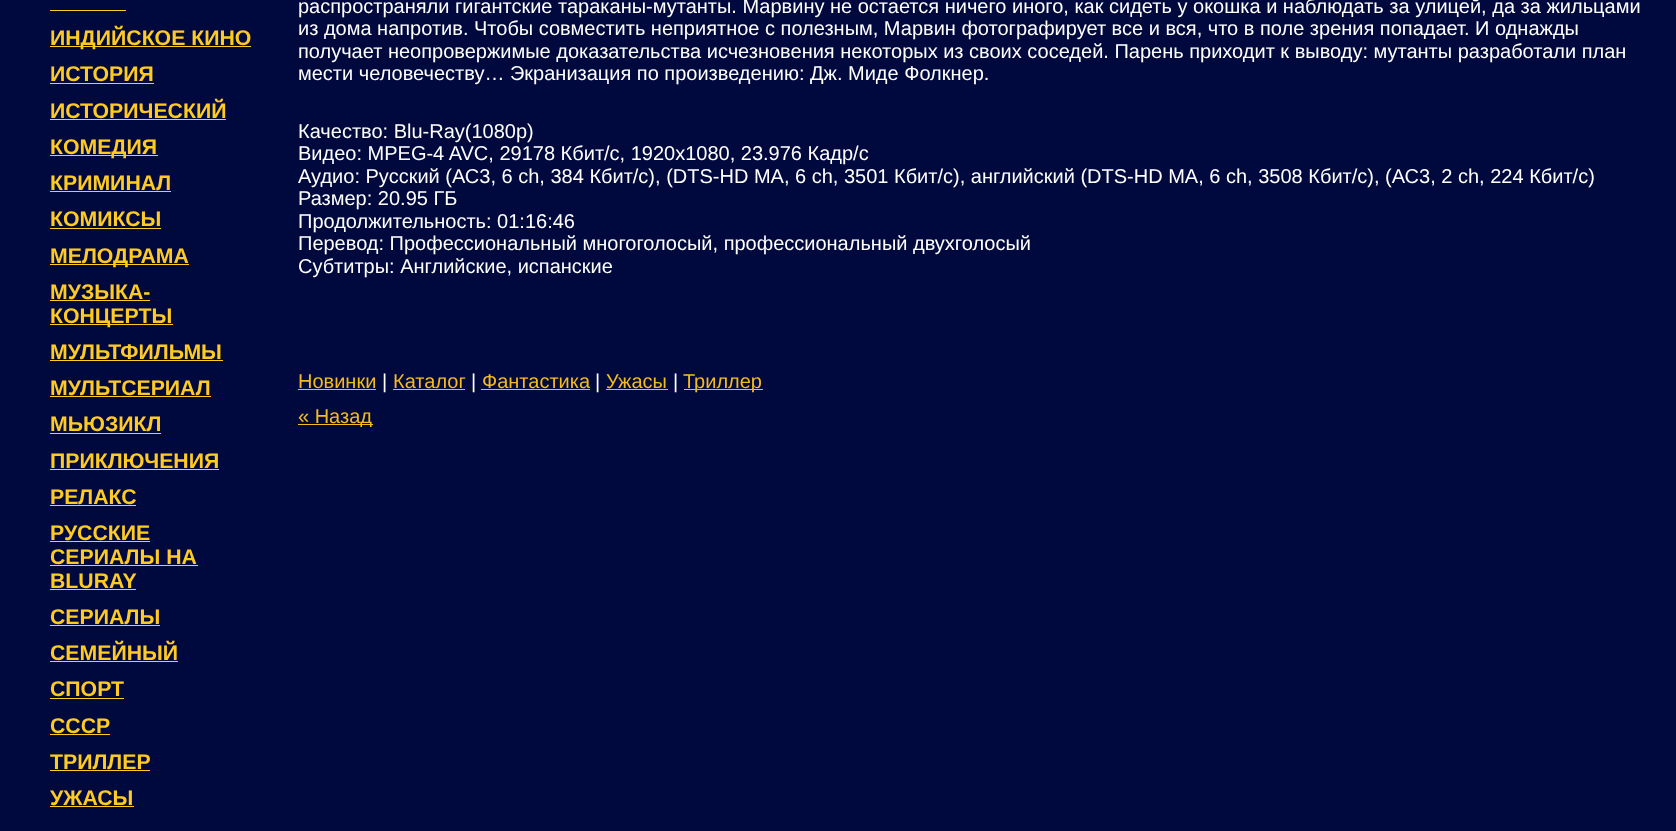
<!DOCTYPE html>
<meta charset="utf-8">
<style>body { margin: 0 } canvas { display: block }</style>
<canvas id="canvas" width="1676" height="831"></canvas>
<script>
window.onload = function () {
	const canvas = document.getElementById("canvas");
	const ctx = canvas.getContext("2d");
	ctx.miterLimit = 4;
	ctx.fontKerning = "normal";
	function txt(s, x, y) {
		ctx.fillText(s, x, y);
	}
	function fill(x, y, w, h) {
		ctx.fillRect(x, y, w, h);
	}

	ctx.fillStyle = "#00093D";
	fill(0, 0, 1676, 831);
	ctx.fillStyle = "#FFCA22";
	fill(50, 10, 76, 1);
	fill(50, 46, 201, 1);
	fill(50, 83, 104, 1);
	fill(50, 119, 176, 1);
	fill(50, 155, 108, 1);
	fill(50, 191, 121, 1);
	fill(50, 228, 111, 1);
	fill(50, 264, 139, 1);
	fill(50, 300, 100, 1);
	fill(50, 324, 123, 1);
	fill(50, 360, 173, 1);
	fill(50, 396, 161, 1);
	fill(50, 433, 111, 1);
	fill(50, 469, 169, 1);
	fill(50, 505, 86, 1);
	fill(50, 541, 100, 1);
	fill(50, 565, 148, 1);
	fill(50, 589, 86, 1);
	fill(50, 625, 110, 1);
	fill(50, 661, 128, 1);
	fill(50, 698, 74, 1);
	fill(50, 734, 60, 1);
	fill(50, 770, 100, 1);
	fill(50, 806, 84, 1);
	ctx.fillStyle = "#F5BA1D";
	fill(298, 389, 78, 1);
	fill(393, 389, 72, 1);
	fill(481, 389, 109, 1);
	fill(606, 389, 62, 1);
	fill(684, 389, 79, 1);
	fill(298, 424, 75, 1);
	ctx.font = "bold 21.25px Liberation Sans";
	ctx.fillStyle = "#FFCA22";
	txt("ИНДИЙСКОЕ КИНО", 50, 45);
	txt("ИСТОРИЯ", 50, 81);
	txt("ИСТОРИЧЕСКИЙ", 50, 118);
	txt("КОМЕДИЯ", 50, 154);
	txt("КРИМИНАЛ", 50, 190);
	txt("КОМИКСЫ", 50, 226);
	txt("МЕЛОДРАМА", 50, 263);
	txt("МУЗЫКА-", 50, 299);
	txt("КОНЦЕРТЫ", 50, 323);
	txt("МУЛЬТФИЛЬМЫ", 50, 359);
	txt("МУЛЬТСЕРИАЛ", 50, 395);
	txt("МЬЮЗИКЛ", 50, 431);
	txt("ПРИКЛЮЧЕНИЯ", 50, 468);
	txt("РЕЛАКС", 50, 504);
	txt("РУССКИЕ", 50, 540);
	txt("СЕРИАЛЫ НА", 50, 564);
	txt("BLURAY", 50, 588);
	txt("СЕРИАЛЫ", 50, 624);
	txt("СЕМЕЙНЫЙ", 50, 660);
	txt("СПОРТ", 50, 696);
	txt("СССР", 50, 733);
	txt("ТРИЛЛЕР", 50, 769);
	txt("УЖАСЫ", 50, 805);
	ctx.font = "20px Liberation Sans";
	ctx.fillStyle = "#FFFFFF";
	txt("распространяли гигантские тараканы-мутанты. Марвину не остается ничего иного, как сидеть у окошка и наблюдать за улицей, да за жильцами", 298, 13);
	txt("из дома напротив. Чтобы совместить неприятное с полезным, Марвин фотографирует все и вся, что в поле зрения попадает. И однажды", 298, 35);
	txt("получает неопровержимые доказательства исчезновения некоторых из своих соседей. Парень приходит к выводу: мутанты разработали план", 298, 58);
	txt("мести человечеству… Экранизация по произведению: Дж. Миде Фолкнер.", 298, 80);
	txt("Качество: Blu-Ray(1080p)", 298, 138);
	txt("Видео: MPEG-4 AVC, 29178 Кбит/с, 1920x1080, 23.976 Кадр/с", 298, 160);
	txt("Аудио: Русский (АС3, 6 ch, 384 Кбит/с), (DTS-HD MA, 6 ch, 3501 Кбит/с), английский (DTS-HD MA, 6 ch, 3508 Кбит/с), (АС3, 2 ch, 224 Кбит/с)", 298, 183);
	txt("Размер: 20.95 ГБ", 298, 205);
	txt("Продолжительность: 01:16:46", 298, 228);
	txt("Перевод: Профессиональный многоголосый, профессиональный двухголосый", 298, 250);
	txt("Субтитры: Английские, испанские", 298, 273);
	ctx.fillStyle = "#F5BA1D";
	txt("Новинки", 298, 388);
	ctx.fillStyle = "#FFFFFF";
	txt("|", 382, 388);
	ctx.fillStyle = "#F5BA1D";
	txt("Каталог", 393, 388);
	ctx.fillStyle = "#FFFFFF";
	txt("|", 471, 388);
	ctx.fillStyle = "#F5BA1D";
	txt("Фантастика", 482, 388);
	ctx.fillStyle = "#FFFFFF";
	txt("|", 595, 388);
	ctx.fillStyle = "#F5BA1D";
	txt("Ужасы", 606, 388);
	ctx.fillStyle = "#FFFFFF";
	txt("|", 673, 388);
	ctx.fillStyle = "#F5BA1D";
	txt("Триллер", 683, 388);
	txt("« Назад", 298, 423);
};
</script>
